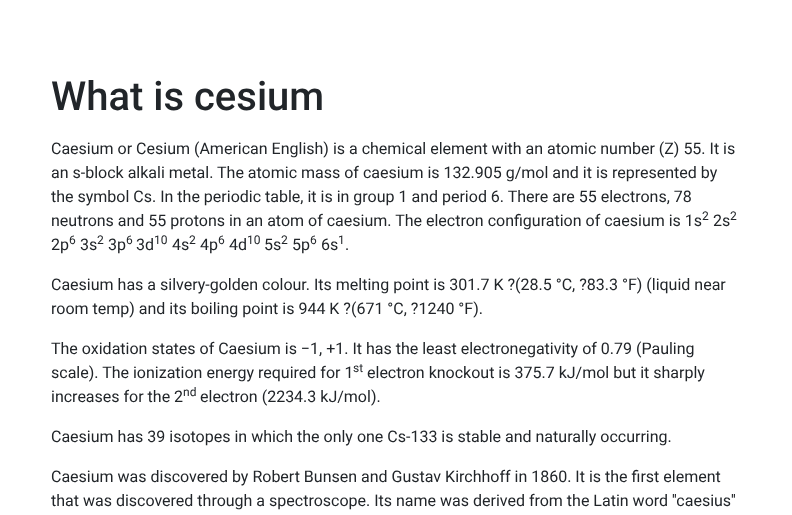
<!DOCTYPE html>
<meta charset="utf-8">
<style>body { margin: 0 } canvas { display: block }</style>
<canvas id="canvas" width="792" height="515"></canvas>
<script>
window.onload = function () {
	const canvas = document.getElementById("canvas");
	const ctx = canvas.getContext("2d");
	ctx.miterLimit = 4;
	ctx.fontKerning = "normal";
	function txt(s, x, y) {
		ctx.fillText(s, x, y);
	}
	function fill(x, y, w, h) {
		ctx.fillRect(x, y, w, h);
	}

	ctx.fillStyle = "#FFFFFF";
	fill(0, 0, 792, 515);
	ctx.font = "500 40px Roboto";
	ctx.fillStyle = "#212529";
	txt("What is cesium", 51, 110);
	ctx.font = "16px Roboto";
	txt("Caesium or Cesium (American English) is a chemical element with an atomic number (Z) 55. It is", 51, 154);
	txt("an s-block alkali metal. The atomic mass of caesium is 132.905 g/mol and it is represented by", 51, 178);
	txt("the symbol Cs. In the periodic table, it is in group 1 and period 6. There are 55 electrons, 78", 51, 202);
	txt("neutrons and 55 protons in an atom of caesium. The electron configuration of caesium is 1s", 51, 226);
	ctx.font = "12px Roboto";
	txt("2", 702, 220);
	ctx.font = "16px Roboto";
	txt("2s", 713, 226);
	ctx.font = "12px Roboto";
	txt("2", 730, 220);
	ctx.font = "16px Roboto";
	txt("2p", 51, 250);
	ctx.font = "12px Roboto";
	txt("6", 69, 244);
	ctx.font = "16px Roboto";
	txt("3s", 80, 250);
	ctx.font = "12px Roboto";
	txt("2", 97, 244);
	ctx.font = "16px Roboto";
	txt("3p", 108, 250);
	ctx.font = "12px Roboto";
	txt("6", 126, 244);
	ctx.font = "16px Roboto";
	txt("3d", 136, 250);
	ctx.font = "12px Roboto";
	txt("10", 154, 244);
	ctx.font = "16px Roboto";
	txt("4s", 172, 250);
	ctx.font = "12px Roboto";
	txt("2", 189, 244);
	ctx.font = "16px Roboto";
	txt("4p", 200, 250);
	ctx.font = "12px Roboto";
	txt("6", 218, 244);
	ctx.font = "16px Roboto";
	txt("4d", 229, 250);
	ctx.font = "12px Roboto";
	txt("10", 247, 244);
	ctx.font = "16px Roboto";
	txt("5s", 264, 250);
	ctx.font = "12px Roboto";
	txt("2", 281, 244);
	ctx.font = "16px Roboto";
	txt("5p", 292, 250);
	ctx.font = "12px Roboto";
	txt("6", 310, 244);
	ctx.font = "16px Roboto";
	txt("6s", 321, 250);
	ctx.font = "12px Roboto";
	txt("1", 338, 244);
	ctx.font = "16px Roboto";
	txt(".", 345, 250);
	txt("Caesium has a silvery-golden colour. Its melting point is 301.7 K ?(28.5 °C, ?83.3 °F) (liquid near", 51, 290);
	txt("room temp) and its boiling point is 944 K ?(671 °C, ?1240 °F).", 51, 314);
	txt("The oxidation states of Caesium is −1, +1. It has the least electronegativity of 0.79 (Pauling", 51, 354);
	txt("scale). The ionization energy required for 1", 51, 378);
	ctx.font = "12px Roboto";
	txt("st", 353, 372);
	ctx.font = "16px Roboto";
	txt("electron knockout is 375.7 kJ/mol but it sharply", 367, 378);
	txt("increases for the 2", 51, 402);
	ctx.font = "12px Roboto";
	txt("nd", 183, 396);
	ctx.font = "16px Roboto";
	txt("electron (2234.3 kJ/mol).", 200, 402);
	txt("Caesium has 39 isotopes in which the only one Cs-133 is stable and naturally occurring.", 51, 442);
	txt("Caesium was discovered by Robert Bunsen and Gustav Kirchhoff in 1860. It is the first element", 51, 482);
	txt("that was discovered through a spectroscope. Its name was derived from the Latin word ''caesius''", 51, 506);
};
</script>
